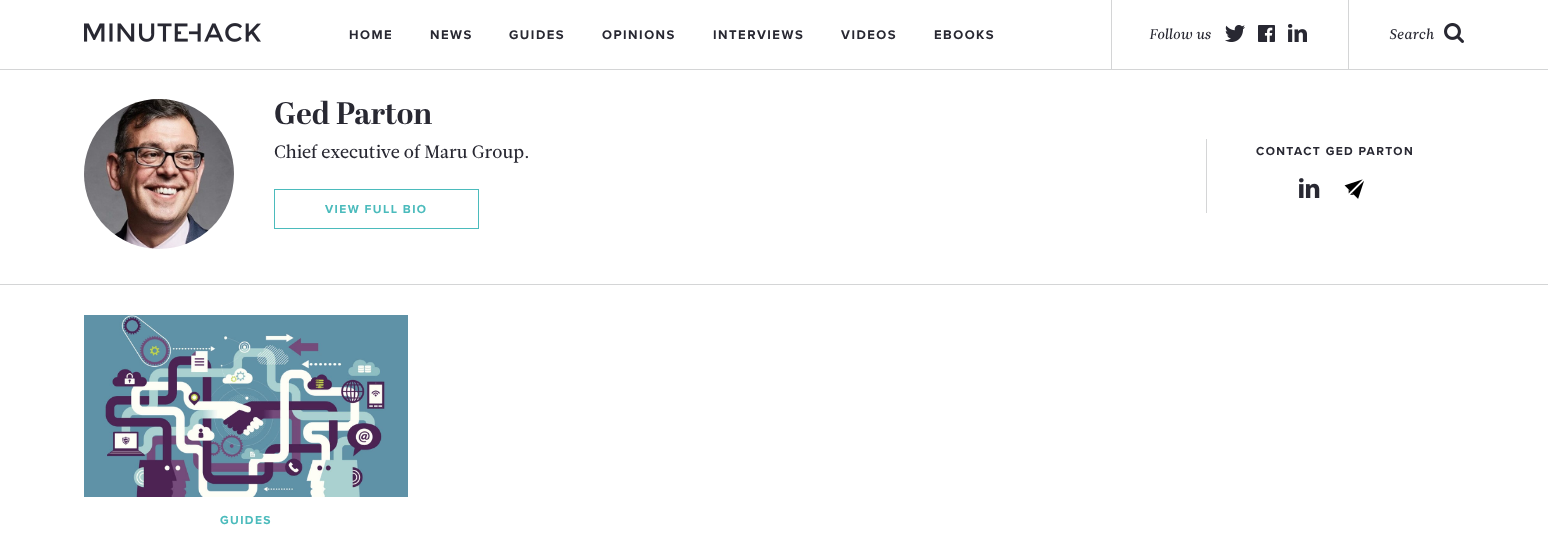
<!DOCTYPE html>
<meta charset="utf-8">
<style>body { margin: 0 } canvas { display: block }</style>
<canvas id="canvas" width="1548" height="534"></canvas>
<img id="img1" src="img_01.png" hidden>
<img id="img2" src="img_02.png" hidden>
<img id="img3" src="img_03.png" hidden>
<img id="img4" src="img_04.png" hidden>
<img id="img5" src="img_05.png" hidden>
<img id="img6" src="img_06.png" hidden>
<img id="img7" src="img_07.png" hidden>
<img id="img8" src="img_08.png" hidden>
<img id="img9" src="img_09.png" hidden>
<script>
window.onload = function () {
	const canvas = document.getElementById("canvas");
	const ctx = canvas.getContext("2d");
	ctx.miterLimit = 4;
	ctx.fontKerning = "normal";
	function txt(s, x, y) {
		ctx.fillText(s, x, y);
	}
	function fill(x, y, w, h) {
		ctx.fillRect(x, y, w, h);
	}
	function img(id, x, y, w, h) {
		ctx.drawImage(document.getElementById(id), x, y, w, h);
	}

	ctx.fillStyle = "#FFFFFF";
	fill(0, 0, 1548, 534);
	ctx.fillStyle = "#D4D5D6";
	fill(0, 69, 1548, 1);
	img("img1", 84, 23, 177, 19);
	fill(1348, 0, 1, 70);
	fill(1111, 0, 1, 70);
	img("img2", 1225, 25, 20, 17);
	img("img3", 1258, 25, 17, 17);
	img("img4", 1288, 24, 19, 18);
	img("img5", 1444, 23, 20, 20);
	fill(0, 284, 1548, 1);
	img("img6", 84, 99, 150, 150);
	ctx.strokeStyle = "#4BBBBC";
	ctx.strokeRect(274.5, 189.5, 204, 39);
	fill(1206, 139, 1, 74);
	img("img7", 1299, 178, 21, 20);
	img("img8", 1344, 179, 20, 20);
	img("img9", 84, 315, 324, 182);
	ctx.letterSpacing = "1.5px";
	ctx.font = "bold 13px Proxima Nova";
	ctx.fillStyle = "#282832";
	txt("HOME", 349, 39);
	txt("NEWS", 430, 39);
	txt("GUIDES", 509, 39);
	txt("OPINIONS", 602, 39);
	txt("INTERVIEWS", 713, 39);
	txt("VIDEOS", 841, 39);
	txt("EBOOKS", 934, 39);
	ctx.letterSpacing = "0px";
	ctx.font = "italic 14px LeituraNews";
	txt("Follow us", 1149, 39);
	txt("Search", 1389, 39);
	ctx.font = "bold 31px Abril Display";
	txt("Ged Parton", 274, 124);
	ctx.font = "18px LeituraNews";
	txt("Chief executive of Maru Group.", 274, 158);
	ctx.letterSpacing = "1.4px";
	ctx.font = "bold 12px Proxima Nova";
	ctx.fillStyle = "#4BBBBC";
	txt("VIEW FULL BIO", 325, 213);
	ctx.fillStyle = "#282832";
	txt("CONTACT GED PARTON", 1256, 155);
	ctx.fillStyle = "#4BBBBC";
	txt("GUIDES", 220, 524);
};
</script>
